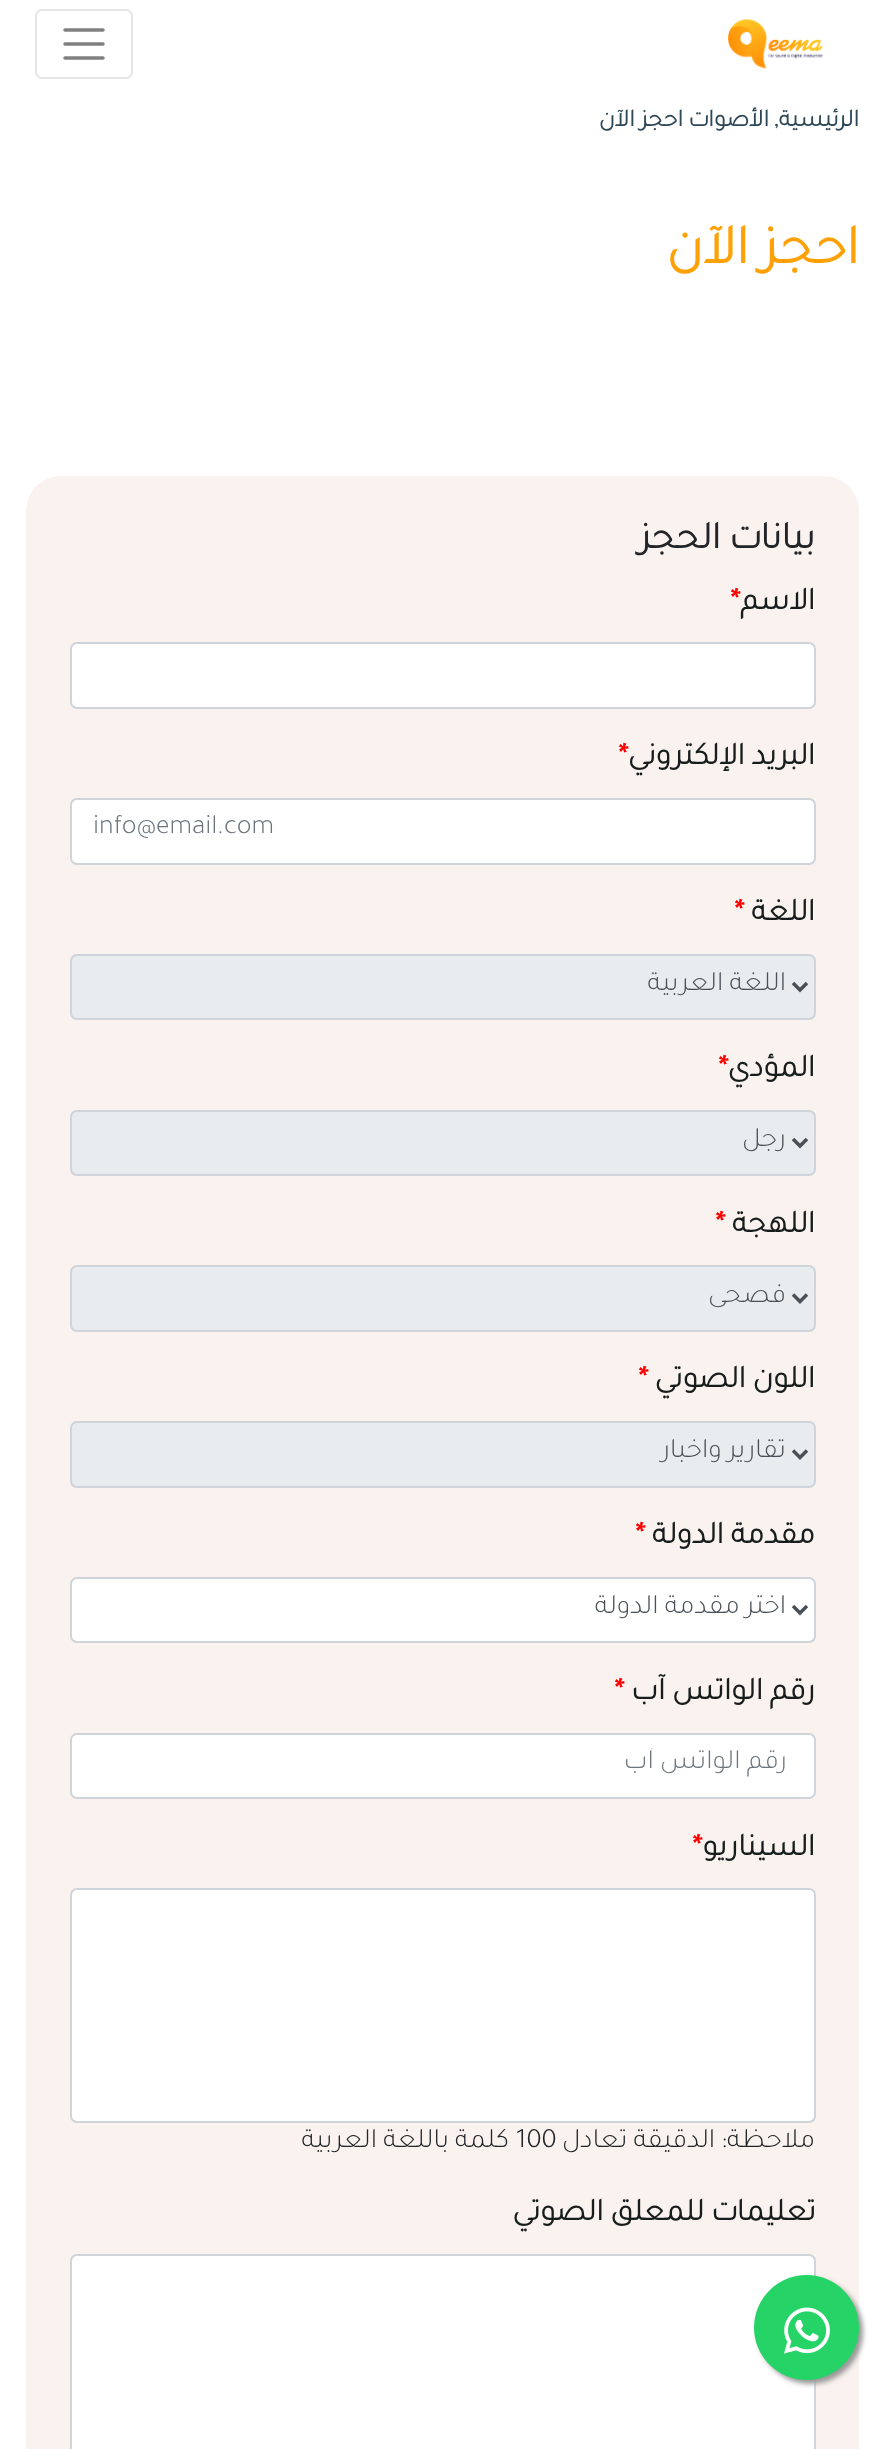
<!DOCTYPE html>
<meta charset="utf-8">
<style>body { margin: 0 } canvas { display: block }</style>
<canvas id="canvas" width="884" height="2449"></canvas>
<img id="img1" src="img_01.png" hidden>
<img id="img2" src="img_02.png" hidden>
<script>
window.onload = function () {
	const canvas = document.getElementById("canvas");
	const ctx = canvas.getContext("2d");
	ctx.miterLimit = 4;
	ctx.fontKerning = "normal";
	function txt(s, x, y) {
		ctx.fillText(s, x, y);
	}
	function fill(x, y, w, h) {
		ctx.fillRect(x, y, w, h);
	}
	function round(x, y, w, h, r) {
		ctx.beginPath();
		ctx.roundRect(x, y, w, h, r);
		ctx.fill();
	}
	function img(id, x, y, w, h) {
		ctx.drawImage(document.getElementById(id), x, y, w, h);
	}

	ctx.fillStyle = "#FFFFFF";
	fill(0, 0, 884, 2449);
	img("img1", 728, 19, 95, 50);
	ctx.beginPath();
	ctx.roundRect(36, 10, 96, 68, 6);
	ctx.strokeStyle = "#E6E6E6";
	ctx.lineWidth = 2;
	ctx.stroke();
	ctx.beginPath();
	ctx.moveTo(65, 30);
	ctx.lineTo(103, 30);
	ctx.moveTo(65, 44);
	ctx.lineTo(103, 44);
	ctx.moveTo(65, 58);
	ctx.lineTo(103, 58);
	ctx.strokeStyle = "#808080";
	ctx.lineWidth = 3.5;
	ctx.lineCap = "round";
	ctx.stroke();
	ctx.fillStyle = "#F9F2EE";
	round(26, 476, 833, 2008, 35);
	ctx.fillStyle = "#FFFFFF";
	ctx.beginPath();
	ctx.roundRect(71, 643, 744, 65, 6);
	ctx.fill();
	ctx.strokeStyle = "#CED4DA";
	ctx.lineWidth = 2;
	ctx.stroke();
	ctx.beginPath();
	ctx.roundRect(71, 799, 744, 65, 6);
	ctx.fill();
	ctx.stroke();
	ctx.fillStyle = "#E9ECEF";
	ctx.beginPath();
	ctx.roundRect(71, 955, 744, 64, 6);
	ctx.fill();
	ctx.stroke();
	ctx.beginPath();
	ctx.moveTo(793, 983);
	ctx.lineTo(800, 990);
	ctx.lineTo(807, 983);
	ctx.strokeStyle = "#495057";
	ctx.lineWidth = 3.5;
	ctx.lineCap = "butt";
	ctx.stroke();
	ctx.beginPath();
	ctx.roundRect(71, 1111, 744, 64, 6);
	ctx.fill();
	ctx.strokeStyle = "#CED4DA";
	ctx.lineWidth = 2;
	ctx.stroke();
	ctx.beginPath();
	ctx.moveTo(793, 1139);
	ctx.lineTo(800, 1146);
	ctx.lineTo(807, 1139);
	ctx.strokeStyle = "#495057";
	ctx.lineWidth = 3.5;
	ctx.stroke();
	ctx.beginPath();
	ctx.roundRect(71, 1266, 744, 65, 6);
	ctx.fill();
	ctx.strokeStyle = "#CED4DA";
	ctx.lineWidth = 2;
	ctx.stroke();
	ctx.beginPath();
	ctx.moveTo(793, 1294.5);
	ctx.lineTo(800, 1301.5);
	ctx.lineTo(807, 1294.5);
	ctx.strokeStyle = "#495057";
	ctx.lineWidth = 3.5;
	ctx.stroke();
	ctx.beginPath();
	ctx.roundRect(71, 1422, 744, 65, 6);
	ctx.fill();
	ctx.strokeStyle = "#CED4DA";
	ctx.lineWidth = 2;
	ctx.stroke();
	ctx.beginPath();
	ctx.moveTo(793, 1450.5);
	ctx.lineTo(800, 1457.5);
	ctx.lineTo(807, 1450.5);
	ctx.strokeStyle = "#495057";
	ctx.lineWidth = 3.5;
	ctx.stroke();
	ctx.fillStyle = "#FFFFFF";
	ctx.beginPath();
	ctx.roundRect(71, 1578, 744, 64, 6);
	ctx.fill();
	ctx.strokeStyle = "#CED4DA";
	ctx.lineWidth = 2;
	ctx.stroke();
	ctx.beginPath();
	ctx.moveTo(793, 1606);
	ctx.lineTo(800, 1613);
	ctx.lineTo(807, 1606);
	ctx.strokeStyle = "#495057";
	ctx.lineWidth = 3.5;
	ctx.stroke();
	ctx.beginPath();
	ctx.roundRect(71, 1734, 744, 64, 6);
	ctx.fill();
	ctx.strokeStyle = "#CED4DA";
	ctx.lineWidth = 2;
	ctx.stroke();
	ctx.beginPath();
	ctx.roundRect(71, 1889, 744, 233, 6);
	ctx.fill();
	ctx.stroke();
	round(72, 2256, 742, 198, 5);
	ctx.beginPath();
	ctx.roundRect(71, 2255, 744, 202, 6);
	ctx.stroke();
	ctx.fillStyle = "#999999";
	ctx.filter = "blur(2.5px)";
	ctx.beginPath();
	ctx.roundRect(758, 2279, 105, 105, 52.5);
	ctx.fill();
	ctx.filter = "none";
	ctx.fillStyle = "#25D366";
	ctx.beginPath();
	ctx.arc(806.5, 2327.5, 52.5, 0, Math.PI * 2);
	ctx.fill();
	img("img2", 784, 2307, 46, 47);
	ctx.direction = "rtl";
	ctx.font = "bold 24.5px Tajawal";
	ctx.fillStyle = "#2F4858";
	txt("الرئيسية,", 859, 126);
	txt("الأصوات", 769, 126);
	txt("احجز الآن", 683, 126);
	ctx.font = "bold 56px Tajawal";
	ctx.fillStyle = "#FEA107";
	txt("احجز الآن", 859, 263);
	ctx.font = "bold 38.5px Tajawal";
	ctx.fillStyle = "#212529";
	txt("بيانات الحجز", 815, 548);
	ctx.font = "bold 31.5px Tajawal";
	ctx.fillStyle = "#171D1C";
	txt("الاسم", 815, 609);
	ctx.direction = "ltr";
	ctx.fillStyle = "#FF0000";
	txt("*", 730, 609);
	ctx.direction = "rtl";
	ctx.fillStyle = "#171D1C";
	txt("البريد الإلكتروني", 815, 764);
	ctx.direction = "ltr";
	ctx.fillStyle = "#FF0000";
	txt("*", 618, 764);
	ctx.font = "300 28px Tajawal";
	ctx.fillStyle = "#6C757D";
	txt("info@email.com", 93, 833);
	ctx.direction = "rtl";
	ctx.font = "bold 31.5px Tajawal";
	ctx.fillStyle = "#171D1C";
	txt("اللغة", 815, 920);
	ctx.direction = "ltr";
	ctx.fillStyle = "#FF0000";
	txt("*", 734, 920);
	ctx.direction = "rtl";
	ctx.font = "300 28px Tajawal";
	ctx.fillStyle = "#495057";
	txt("اللغة العربية", 786, 990);
	ctx.font = "bold 31.5px Tajawal";
	ctx.fillStyle = "#171D1C";
	txt("المؤدي", 815, 1076);
	ctx.direction = "ltr";
	ctx.fillStyle = "#FF0000";
	txt("*", 718, 1076);
	ctx.direction = "rtl";
	ctx.font = "300 28px Tajawal";
	ctx.fillStyle = "#495057";
	txt("رجل", 786, 1146);
	ctx.font = "bold 31.5px Tajawal";
	ctx.fillStyle = "#171D1C";
	txt("اللهجة", 815, 1232);
	ctx.direction = "ltr";
	ctx.fillStyle = "#FF0000";
	txt("*", 715, 1232);
	ctx.direction = "rtl";
	ctx.font = "300 28px Tajawal";
	ctx.fillStyle = "#495057";
	txt("فصحى", 786, 1302);
	ctx.font = "bold 31.5px Tajawal";
	ctx.fillStyle = "#171D1C";
	txt("اللون الصوتي", 815, 1387);
	ctx.direction = "ltr";
	ctx.fillStyle = "#FF0000";
	txt("*", 638, 1387);
	ctx.save();
	ctx.beginPath();
	ctx.rect(121, 1439, 665, 31);
	ctx.clip();
	ctx.direction = "rtl";
	ctx.font = "300 28px Tajawal";
	ctx.fillStyle = "#495057";
	txt("تقارير وأخبار", 786, 1457);
	ctx.restore();
	ctx.direction = "rtl";
	ctx.fillStyle = "#171D1C";
	txt("مقدمة الدولة", 815, 1543);
	ctx.direction = "ltr";
	ctx.fillStyle = "#FF0000";
	txt("*", 635, 1543);
	ctx.direction = "rtl";
	ctx.font = "300 28px Tajawal";
	ctx.fillStyle = "#495057";
	txt("اختر مقدمة الدولة", 786, 1613);
	ctx.font = "bold 31.5px Tajawal";
	ctx.fillStyle = "#171D1C";
	txt("رقم الواتس آب", 815, 1699);
	ctx.direction = "ltr";
	ctx.fillStyle = "#FF0000";
	txt("*", 614, 1699);
	ctx.save();
	ctx.beginPath();
	ctx.rect(119, 1748, 674, 34);
	ctx.clip();
	ctx.direction = "rtl";
	ctx.font = "300 28px Tajawal";
	ctx.fillStyle = "#6C757D";
	txt("رقم الواتس آب", 787, 1768);
	ctx.restore();
	ctx.direction = "rtl";
	ctx.fillStyle = "#171D1C";
	txt("السيناريو", 815, 1855);
	ctx.direction = "ltr";
	ctx.fillStyle = "#FF0000";
	txt("*", 692, 1855);
	ctx.direction = "rtl";
	ctx.font = "300 28px Tajawal";
	ctx.fillStyle = "#212529";
	txt("ملاحظة: الدقيقة تعادل", 815, 2147);
	ctx.direction = "ltr";
	txt("100", 516, 2147);
	ctx.direction = "rtl";
	txt("كلمة باللغة العربية", 509, 2147);
	ctx.font = "bold 31.5px Tajawal";
	ctx.fillStyle = "#171D1C";
	txt("تعليمات للمعلق الصوتي", 816, 2220);
};
</script>
